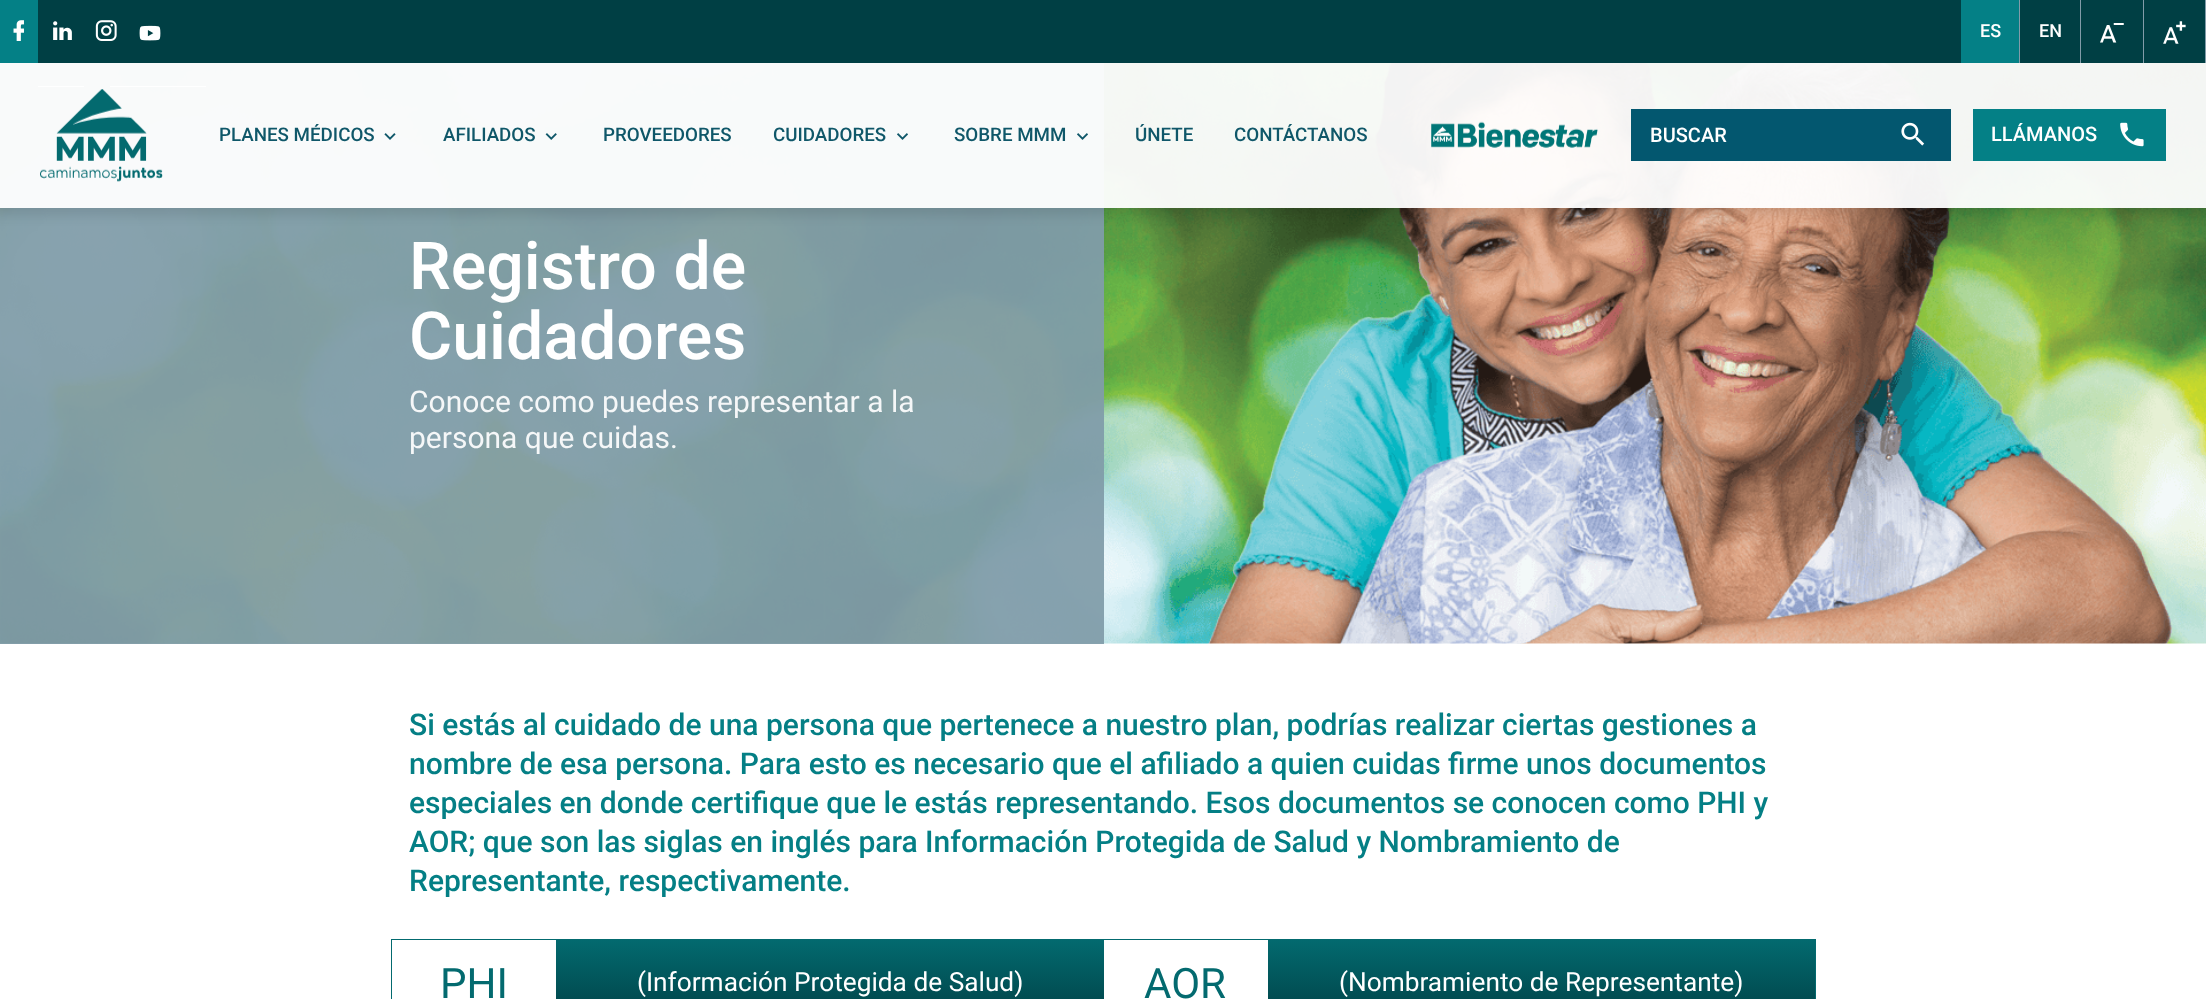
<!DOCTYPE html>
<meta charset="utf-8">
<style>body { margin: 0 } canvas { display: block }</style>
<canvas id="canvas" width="2206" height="999"></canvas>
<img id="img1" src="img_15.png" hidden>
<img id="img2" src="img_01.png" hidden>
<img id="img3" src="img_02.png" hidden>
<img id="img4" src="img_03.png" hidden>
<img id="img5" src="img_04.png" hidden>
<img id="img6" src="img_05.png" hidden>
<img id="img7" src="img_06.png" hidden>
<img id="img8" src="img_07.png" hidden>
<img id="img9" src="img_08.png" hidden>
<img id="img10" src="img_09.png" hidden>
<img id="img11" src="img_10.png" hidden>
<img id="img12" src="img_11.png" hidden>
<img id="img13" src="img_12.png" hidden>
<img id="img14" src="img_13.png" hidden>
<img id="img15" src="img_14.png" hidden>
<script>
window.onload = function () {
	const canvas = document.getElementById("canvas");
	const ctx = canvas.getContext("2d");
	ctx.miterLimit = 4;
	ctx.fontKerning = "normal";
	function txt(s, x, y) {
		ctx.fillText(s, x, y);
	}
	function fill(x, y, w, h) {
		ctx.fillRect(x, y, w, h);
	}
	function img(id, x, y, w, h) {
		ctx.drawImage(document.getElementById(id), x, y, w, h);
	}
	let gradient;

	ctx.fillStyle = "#FFFFFF";
	fill(0, 0, 2206, 999);
	img("img1", 0, 63, 2206, 581);
	ctx.fillStyle = "rgba(129, 156, 169, 0.94)";
	fill(0, 63, 1104, 581);
	ctx.fillStyle = "#FFFFFF";
	fill(38, 86, 46, 1);
	fill(110, 86, 96, 1);
	ctx.save();
	ctx.beginPath();
	ctx.moveTo(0, 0);
	ctx.lineTo(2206, 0);
	ctx.lineTo(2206, 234);
	ctx.lineTo(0, 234);
	ctx.closePath();
	ctx.moveTo(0, 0);
	ctx.lineTo(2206, 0);
	ctx.lineTo(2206, 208);
	ctx.lineTo(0, 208);
	ctx.closePath();
	ctx.clip("evenodd");
	ctx.fillStyle = "rgba(0, 0, 0, 0.1)";
	ctx.filter = "blur(6px)";
	ctx.beginPath();
	ctx.rect(-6, -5, 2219, 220);
	ctx.fill();
	ctx.filter = "none";
	ctx.restore();
	ctx.fillStyle = "#003F44";
	fill(38, 0, 2167, 63);
	ctx.fillStyle = "#048086";
	fill(0, 0, 38, 63);
	img("img2", 13, 20, 11, 21);
	img("img3", 53, 21, 19, 19);
	img("img4", 95, 20, 22, 21);
	img("img5", 139, 25, 22, 16);
	ctx.fillStyle = "#819CA9";
	fill(2019, 0, 1, 63);
	ctx.fillStyle = "#048086";
	fill(1961, 0, 58, 63);
	ctx.fillStyle = "#819CA9";
	fill(2080, 0, 1, 63);
	fill(2143, 0, 1, 63);
	img("img6", 2100, 23, 24, 20);
	fill(2205, 0, 1, 63);
	img("img7", 2163, 21, 23, 23);
	ctx.fillStyle = "rgba(255, 255, 255, 0.95)";
	fill(0, 63, 2206, 145);
	img("img8", 40, 89, 123, 93);
	img("img9", 384, 133, 12, 7);
	img("img10", 545, 133, 12, 7);
	img("img11", 897, 133, 11, 7);
	img("img12", 1077, 133, 11, 7);
	img("img13", 1431, 121, 167, 27);
	ctx.fillStyle = "#03576F";
	fill(1631, 109, 320, 52);
	img("img14", 1901, 122, 24, 24);
	ctx.fillStyle = "#048086";
	fill(1973, 109, 193, 52);
	img("img15", 2120, 122, 24, 25);
	ctx.strokeStyle = "#036A6F";
	ctx.strokeRect(391.5, 939.5, 1424, 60);
	gradient = ctx.createLinearGradient(748, 940, 748, 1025);
	gradient.addColorStop(0, "#036A6F");
	gradient.addColorStop(1, "#003F44");
	ctx.fillStyle = gradient;
	fill(556, 940, 548, 59);
	gradient = ctx.createLinearGradient(1459, 940, 1459, 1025);
	gradient.addColorStop(0, "#036A6F");
	gradient.addColorStop(1, "#003F44");
	ctx.fillStyle = gradient;
	fill(1268, 940, 547, 59);
	ctx.font = "500 18px Roboto";
	ctx.fillStyle = "#FFFFFF";
	txt("ES", 1980, 37);
	txt("EN", 2039, 37);
	ctx.font = "500 18.75px Roboto";
	ctx.fillStyle = "#0F5769";
	txt("PLANES MÉDICOS", 219, 141);
	txt("AFILIADOS", 443, 141);
	txt("PROVEEDORES", 603, 141);
	txt("CUIDADORES", 773, 141);
	txt("SOBRE MMM", 954, 141);
	txt("ÚNETE", 1135, 141);
	txt("CONTÁCTANOS", 1234, 141);
	ctx.font = "500 20px Roboto";
	ctx.fillStyle = "#FFFFFF";
	txt("BUSCAR", 1650, 142);
	txt("LLÁMANOS", 1991, 141);
	ctx.font = "500 66.25px Roboto";
	txt("Registro de", 409, 289);
	txt("Cuidadores", 409, 359);
	ctx.font = "30px Roboto";
	ctx.fillStyle = "#F5F7F8";
	txt("Conoce como puedes representar a la", 409, 412);
	txt("persona que cuidas.", 409, 448);
	ctx.font = "500 30px Roboto";
	ctx.fillStyle = "#047F85";
	txt("Si estás al cuidado de una persona que pertenece a nuestro plan, podrías realizar ciertas gestiones a", 409, 735);
	txt("nombre de esa persona. Para esto es necesario que el afiliado a quien cuidas firme unos documentos", 409, 774);
	txt("especiales en donde certifique que le estás representando. Esos documentos se conocen como PHI y", 409, 813);
	txt("AOR; que son las siglas en inglés para Información Protegida de Salud y Nombramiento de", 409, 852);
	txt("Representante, respectivamente.", 409, 891);
	ctx.font = "42px Roboto";
	ctx.fillStyle = "#036A6F";
	txt("PHI", 440, 998);
	ctx.font = "26.25px Roboto";
	ctx.fillStyle = "#FFFFFF";
	txt("(Información Protegida de Salud)", 637, 991);
	ctx.font = "42px Roboto";
	ctx.fillStyle = "#036A6F";
	txt("AOR", 1144, 998);
	ctx.font = "26.25px Roboto";
	ctx.fillStyle = "#FFFFFF";
	txt("(Nombramiento de Representante)", 1339, 991);
};
</script>
